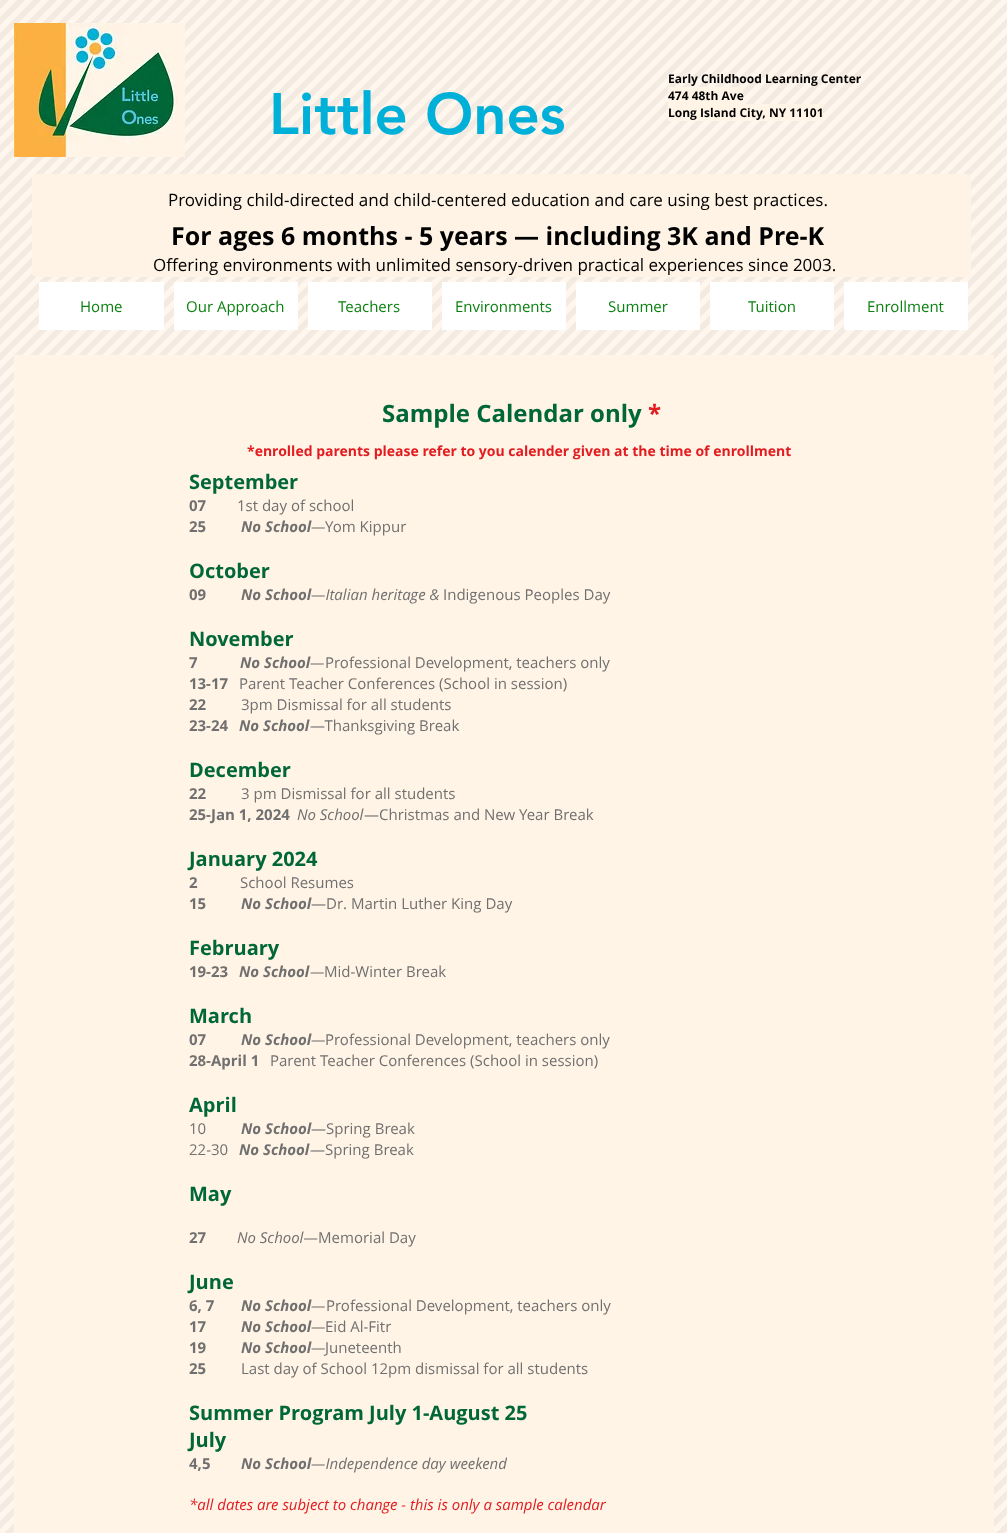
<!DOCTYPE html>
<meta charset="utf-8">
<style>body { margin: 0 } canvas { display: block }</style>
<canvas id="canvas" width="1007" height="1533"></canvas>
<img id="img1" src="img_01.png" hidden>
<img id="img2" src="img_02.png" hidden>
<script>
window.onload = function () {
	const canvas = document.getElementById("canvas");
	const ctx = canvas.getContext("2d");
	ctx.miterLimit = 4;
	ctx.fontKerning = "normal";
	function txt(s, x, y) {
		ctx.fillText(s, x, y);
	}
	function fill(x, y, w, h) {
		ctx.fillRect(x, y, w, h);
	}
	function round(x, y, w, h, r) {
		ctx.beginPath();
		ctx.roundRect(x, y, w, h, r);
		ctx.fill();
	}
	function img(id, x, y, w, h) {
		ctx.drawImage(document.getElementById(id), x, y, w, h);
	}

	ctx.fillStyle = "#FFF3E5";
	fill(0, 0, 1007, 1533);
	img("img1", 0, 0, 1007, 1533);
	img("img2", 14, 23, 171, 134);
	ctx.fillStyle = "#FFF4E6";
	fill(668, 87, 75, 17);
	fill(668, 104, 155, 17);
	ctx.fillStyle = "#FFF3E5";
	round(32, 174, 939, 103, 5);
	ctx.fillStyle = "#FFFFFF";
	fill(39, 282, 125, 48);
	fill(174, 282, 124, 48);
	fill(308, 282, 124, 48);
	fill(442, 282, 124, 48);
	fill(576, 282, 124, 48);
	fill(710, 282, 124, 48);
	fill(844, 282, 124, 48);
	ctx.fillStyle = "#FFF4E6";
	fill(14, 355, 980, 1178);
	ctx.font = "900 58px 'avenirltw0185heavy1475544'";
	ctx.fillStyle = "#00B0D8";
	txt("Little Ones", 269, 134);
	ctx.font = "bold 12px Open Sans";
	ctx.fillStyle = "#000000";
	txt("Early Childhood Learning Center", 668, 83);
	txt("474 48th Ave", 668, 100);
	txt("Long Island City, NY 11101", 668, 117);
	ctx.font = "17px Open Sans";
	txt("Providing child-directed and child-centered education and care using best practices.", 168, 206);
	ctx.font = "bold 25px Open Sans";
	txt("For ages 6 months - 5 years — including 3K and Pre-K", 171, 245);
	ctx.font = "17px Open Sans";
	txt("Offering environments with unlimited sensory-driven practical experiences since 2003.", 153, 271);
	ctx.font = "15px Open Sans";
	ctx.fillStyle = "#0C8111";
	txt("Home", 80, 312);
	txt("Our Approach", 186, 312);
	txt("Teachers", 338, 312);
	txt("Environments", 455, 312);
	txt("Summer", 608, 312);
	txt("Tuition", 748, 312);
	txt("Enrollment", 867, 312);
	ctx.font = "bold 24px Open Sans";
	ctx.fillStyle = "#006738";
	txt("Sample Calendar only", 382, 422);
	ctx.fillStyle = "#E21C21";
	txt("*", 648, 422);
	ctx.font = "bold 14px Open Sans";
	txt("*enrolled parents please refer to you calender given at the time of enrollment", 247, 456);
	ctx.font = "bold 20px Open Sans";
	ctx.fillStyle = "#006738";
	txt("September", 189, 489);
	ctx.font = "bold 15px Open Sans";
	ctx.fillStyle = "#717070";
	txt("07", 189, 511);
	ctx.font = "15px Open Sans";
	txt("1st day of school", 237, 511);
	ctx.font = "bold 15px Open Sans";
	txt("25", 189, 532);
	ctx.font = "italic bold 15px Open Sans";
	txt("No School", 241, 532);
	ctx.font = "italic 15px Open Sans";
	txt("—", 311, 532);
	ctx.font = "15px Open Sans";
	txt("Yom Kippur", 325, 532);
	ctx.font = "bold 20px Open Sans";
	ctx.fillStyle = "#006738";
	txt("October", 189, 578);
	ctx.font = "bold 15px Open Sans";
	ctx.fillStyle = "#717070";
	txt("09", 189, 600);
	ctx.font = "italic bold 15px Open Sans";
	txt("No School", 241, 600);
	ctx.font = "italic 15px Open Sans";
	txt("—Italian heritage &", 311, 600);
	ctx.font = "15px Open Sans";
	txt("Indigenous Peoples Day", 443, 600);
	ctx.font = "bold 20px Open Sans";
	ctx.fillStyle = "#006738";
	txt("November", 189, 646);
	ctx.font = "bold 15px Open Sans";
	ctx.fillStyle = "#717070";
	txt("7", 189, 668);
	ctx.font = "italic bold 15px Open Sans";
	txt("No School", 240, 668);
	ctx.font = "italic 15px Open Sans";
	txt("—", 310, 668);
	ctx.font = "15px Open Sans";
	txt("Professional Development, teachers only", 325, 668);
	ctx.font = "bold 15px Open Sans";
	txt("13-17", 189, 689);
	ctx.font = "15px Open Sans";
	txt("Parent Teacher Conferences (School in session)", 239, 689);
	ctx.font = "bold 15px Open Sans";
	txt("22", 189, 710);
	ctx.font = "15px Open Sans";
	txt("3pm Dismissal for all students", 241, 710);
	ctx.font = "bold 15px Open Sans";
	txt("23-24", 189, 731);
	ctx.font = "italic bold 15px Open Sans";
	txt("No School", 239, 731);
	ctx.font = "15px Open Sans";
	txt("—Thanksgiving Break", 310, 731);
	ctx.font = "bold 20px Open Sans";
	ctx.fillStyle = "#006738";
	txt("December", 189, 777);
	ctx.font = "bold 15px Open Sans";
	ctx.fillStyle = "#717070";
	txt("22", 189, 799);
	ctx.font = "15px Open Sans";
	txt("3 pm Dismissal for all students", 241, 799);
	ctx.font = "bold 15px Open Sans";
	txt("25-Jan 1, 2024", 189, 820);
	ctx.font = "italic 15px Open Sans";
	txt("No School", 297, 820);
	ctx.font = "15px Open Sans";
	txt("—Christmas and New Year Break", 364, 820);
	ctx.font = "bold 20px Open Sans";
	ctx.fillStyle = "#006738";
	txt("January 2024", 189, 866);
	ctx.font = "bold 15px Open Sans";
	ctx.fillStyle = "#717070";
	txt("2", 189, 888);
	ctx.font = "15px Open Sans";
	txt("School Resumes", 240, 888);
	ctx.font = "bold 15px Open Sans";
	txt("15", 189, 909);
	ctx.font = "italic bold 15px Open Sans";
	txt("No School", 241, 909);
	ctx.font = "15px Open Sans";
	txt("—Dr. Martin Luther King Day", 311, 909);
	ctx.font = "bold 20px Open Sans";
	ctx.fillStyle = "#006738";
	txt("February", 189, 955);
	ctx.font = "bold 15px Open Sans";
	ctx.fillStyle = "#717070";
	txt("19-23", 189, 977);
	ctx.font = "italic bold 15px Open Sans";
	txt("No School", 239, 977);
	ctx.font = "italic 15px Open Sans";
	txt("—", 310, 977);
	ctx.font = "15px Open Sans";
	txt("Mid-Winter Break", 324, 977);
	ctx.font = "bold 20px Open Sans";
	ctx.fillStyle = "#006738";
	txt("March", 189, 1023);
	ctx.font = "bold 15px Open Sans";
	ctx.fillStyle = "#717070";
	txt("07", 189, 1045);
	ctx.font = "italic bold 15px Open Sans";
	txt("No School", 241, 1045);
	ctx.font = "italic 15px Open Sans";
	txt("—", 311, 1045);
	ctx.font = "15px Open Sans";
	txt("Professional Development, teachers only", 325, 1045);
	ctx.font = "bold 15px Open Sans";
	txt("28-April 1", 189, 1066);
	ctx.font = "15px Open Sans";
	txt("Parent Teacher Conferences (School in session)", 270, 1066);
	ctx.font = "bold 20px Open Sans";
	ctx.fillStyle = "#006738";
	txt("April", 189, 1112);
	ctx.font = "15px Open Sans";
	ctx.fillStyle = "#717070";
	txt("10", 189, 1134);
	ctx.font = "italic bold 15px Open Sans";
	txt("No School", 241, 1134);
	ctx.font = "15px Open Sans";
	txt("—Spring Break", 311, 1134);
	txt("22-30", 189, 1155);
	ctx.font = "italic bold 15px Open Sans";
	txt("No School", 239, 1155);
	ctx.font = "15px Open Sans";
	txt("—Spring Break", 310, 1155);
	ctx.font = "bold 20px Open Sans";
	ctx.fillStyle = "#006738";
	txt("May", 189, 1201);
	ctx.font = "bold 15px Open Sans";
	ctx.fillStyle = "#717070";
	txt("27", 189, 1243);
	ctx.font = "italic 15px Open Sans";
	txt("No School—", 237, 1243);
	ctx.font = "15px Open Sans";
	txt("Memorial Day", 318, 1243);
	ctx.font = "bold 20px Open Sans";
	ctx.fillStyle = "#006738";
	txt("June", 189, 1289);
	ctx.font = "bold 15px Open Sans";
	ctx.fillStyle = "#717070";
	txt("6, 7", 189, 1311);
	ctx.font = "italic bold 15px Open Sans";
	txt("No School", 241, 1311);
	ctx.font = "italic 15px Open Sans";
	txt("—", 311, 1311);
	ctx.font = "15px Open Sans";
	txt("Professional Development, teachers only", 326, 1311);
	ctx.font = "bold 15px Open Sans";
	txt("17", 189, 1332);
	ctx.font = "italic bold 15px Open Sans";
	txt("No School", 241, 1332);
	ctx.font = "italic 15px Open Sans";
	txt("—", 311, 1332);
	ctx.font = "15px Open Sans";
	txt("Eid Al-Fitr", 325, 1332);
	ctx.font = "bold 15px Open Sans";
	txt("19", 189, 1353);
	ctx.font = "italic bold 15px Open Sans";
	txt("No School", 241, 1353);
	ctx.font = "italic 15px Open Sans";
	txt("—", 311, 1353);
	ctx.font = "15px Open Sans";
	txt("Juneteenth", 325, 1353);
	ctx.font = "bold 15px Open Sans";
	txt("25", 189, 1374);
	ctx.font = "15px Open Sans";
	txt("Last day of School 12pm dismissal for all students", 241, 1374);
	ctx.font = "bold 20px Open Sans";
	ctx.fillStyle = "#006738";
	txt("Summer Program July 1-August 25", 189, 1420);
	txt("July", 189, 1447);
	ctx.font = "bold 15px Open Sans";
	ctx.fillStyle = "#717070";
	txt("4,5", 189, 1469);
	ctx.font = "italic bold 15px Open Sans";
	txt("No School", 241, 1469);
	ctx.font = "italic 15px Open Sans";
	txt("—Independence day weekend", 311, 1469);
	ctx.fillStyle = "#E21C21";
	txt("*all dates are subject to change - this is only a sample calendar", 189, 1510);
};
</script>
